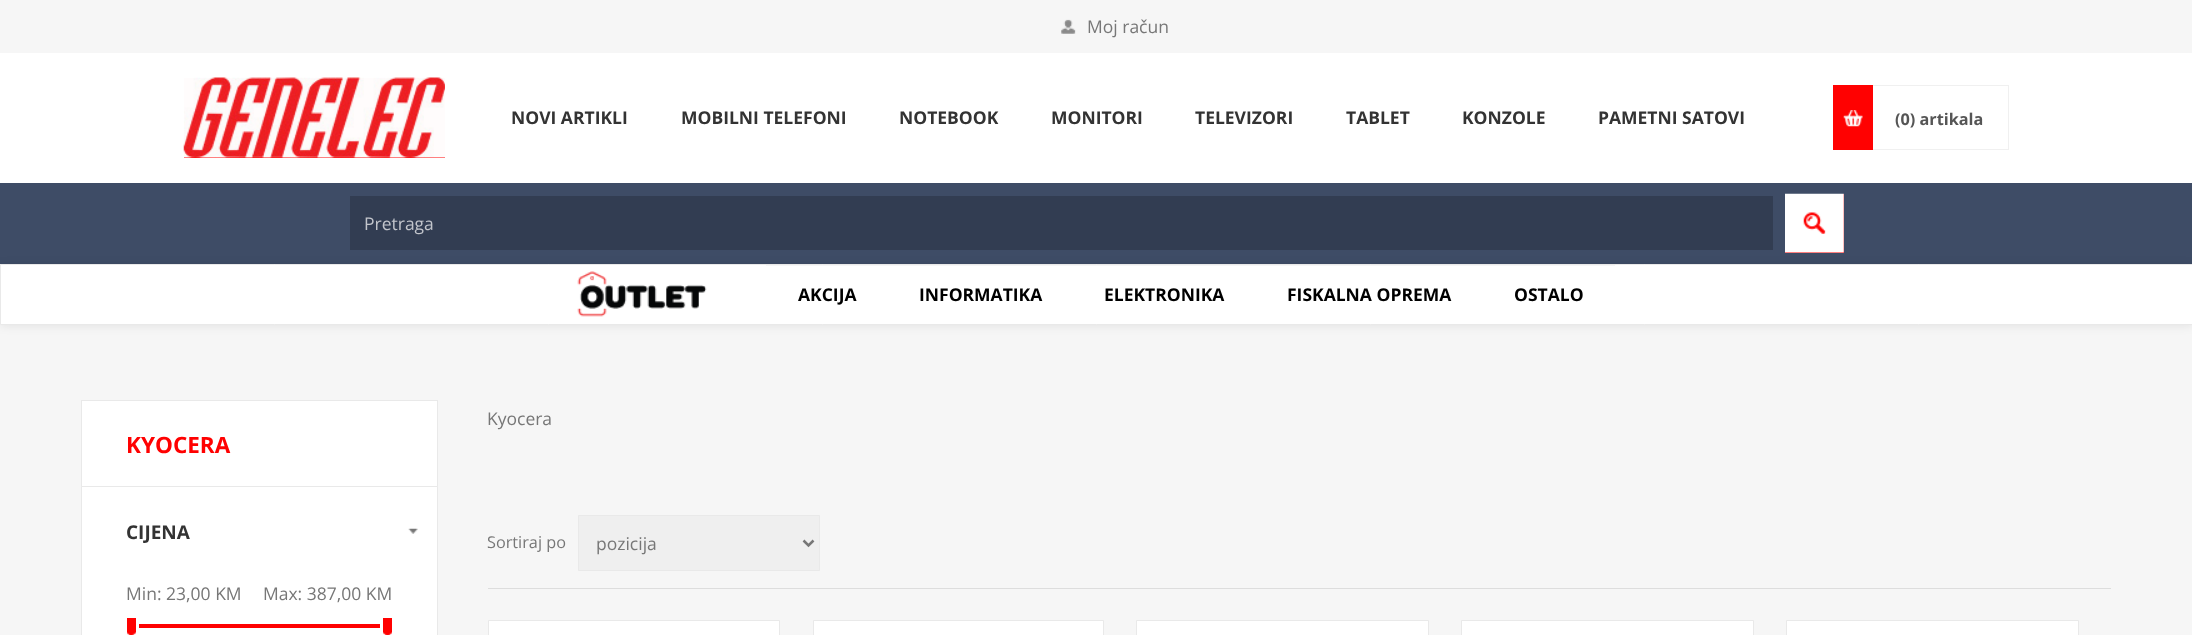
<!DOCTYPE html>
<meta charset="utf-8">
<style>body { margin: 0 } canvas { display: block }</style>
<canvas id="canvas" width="2192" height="635"></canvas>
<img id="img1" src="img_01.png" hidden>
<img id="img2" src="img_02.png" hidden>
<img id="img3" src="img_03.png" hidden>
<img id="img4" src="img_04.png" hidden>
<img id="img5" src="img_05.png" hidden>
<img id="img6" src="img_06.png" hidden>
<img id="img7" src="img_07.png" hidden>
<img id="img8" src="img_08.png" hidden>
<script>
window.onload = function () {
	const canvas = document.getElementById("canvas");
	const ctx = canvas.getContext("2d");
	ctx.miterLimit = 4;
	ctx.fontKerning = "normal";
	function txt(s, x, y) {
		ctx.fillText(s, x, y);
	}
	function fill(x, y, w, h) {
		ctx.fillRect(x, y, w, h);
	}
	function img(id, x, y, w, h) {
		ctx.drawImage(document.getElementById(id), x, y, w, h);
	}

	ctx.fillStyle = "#F6F6F6";
	fill(0, 0, 2192, 635);
	img("img1", 1061, 19, 15, 15);
	ctx.fillStyle = "#FFFFFF";
	fill(0, 53, 2192, 130);
	ctx.fillStyle = "#FF0404";
	fill(184, 78, 261, 80);
	img("img2", 183, 77, 262, 81);
	ctx.strokeStyle = "#F0F0F0";
	ctx.strokeRect(1871.5, 85.5, 137, 64);
	ctx.fillStyle = "#FF0101";
	fill(1833, 85, 40, 65);
	img("img3", 1843, 110, 20, 17);
	ctx.fillStyle = "#3E4C66";
	fill(0, 183, 2192, 81);
	ctx.fillStyle = "rgba(0, 0, 0, 0.08)";
	ctx.filter = "blur(5px)";
	ctx.beginPath();
	ctx.rect(0, 265, 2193, 61);
	ctx.fill();
	ctx.filter = "none";
	ctx.fillStyle = "#323D52";
	fill(350, 196, 1423, 54);
	ctx.fillStyle = "#FF0101";
	fill(1785, 194, 59, 59);
	img("img4", 1785, 193, 59, 60);
	ctx.fillStyle = "#FFFFFF";
	ctx.beginPath();
	ctx.rect(0.5, 264.5, 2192, 60);
	ctx.fill();
	ctx.strokeStyle = "#E9E9E9";
	ctx.stroke();
	img("img5", 577, 271, 130, 46);
	ctx.fillStyle = "#F6F6F6";
	fill(766, 265, 849, 1);
	ctx.fillStyle = "#FFFFFF";
	fill(82, 401, 355, 85);
	ctx.strokeRect(81.5, 400.5, 356, 87);
	ctx.beginPath();
	ctx.rect(81.5, 486.5, 356, 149);
	ctx.fill();
	ctx.stroke();
	img("img6", 408, 528, 10, 6);
	ctx.fillStyle = "#FF0101";
	fill(131, 624, 257, 4);
	fill(127, 618, 9, 17);
	img("img7", 127, 632, 9, 3);
	ctx.strokeStyle = "#FFFFFF";
	ctx.lineWidth = 3;
	ctx.strokeRect(125.5, 616.5, 12, 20);
	fill(383, 618, 9, 17);
	img("img8", 383, 632, 9, 3);
	ctx.strokeRect(381.5, 616.5, 12, 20);
	ctx.fillStyle = "#DDDDDD";
	fill(488, 588, 1623, 1);
	ctx.fillStyle = "#EFEFEF";
	ctx.beginPath();
	ctx.rect(578.5, 515.5, 241, 55);
	ctx.fill();
	ctx.strokeStyle = "#E9E9E9";
	ctx.lineWidth = 1;
	ctx.stroke();
	ctx.beginPath();
	ctx.moveTo(803.5, 540.5);
	ctx.lineTo(808.5, 545.5);
	ctx.lineTo(813.5, 540.5);
	ctx.strokeStyle = "#777777";
	ctx.lineWidth = 2.5;
	ctx.stroke();
	ctx.fillStyle = "#FFFFFF";
	ctx.beginPath();
	ctx.rect(488.5, 620.5, 291, 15);
	ctx.fill();
	ctx.strokeStyle = "#E9E9E9";
	ctx.lineWidth = 1;
	ctx.stroke();
	ctx.beginPath();
	ctx.rect(813.5, 620.5, 290, 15);
	ctx.fill();
	ctx.stroke();
	ctx.beginPath();
	ctx.rect(1136.5, 620.5, 292, 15);
	ctx.fill();
	ctx.stroke();
	ctx.beginPath();
	ctx.rect(1461.5, 620.5, 292, 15);
	ctx.fill();
	ctx.stroke();
	ctx.beginPath();
	ctx.rect(1786.5, 620.5, 292, 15);
	ctx.fill();
	ctx.stroke();
	ctx.font = "17.5px Open Sans";
	ctx.fillStyle = "#777777";
	txt("Moj račun", 1087, 33);
	ctx.font = "bold 17.5px Open Sans";
	ctx.fillStyle = "#333333";
	txt("NOVI ARTIKLI", 511, 124);
	txt("MOBILNI TELEFONI", 681, 124);
	txt("NOTEBOOK", 899, 124);
	txt("MONITORI", 1051, 124);
	txt("TELEVIZORI", 1195, 124);
	txt("TABLET", 1346, 124);
	txt("KONZOLE", 1462, 124);
	txt("PAMETNI SATOVI", 1598, 124);
	ctx.font = "bold 16.25px Open Sans";
	ctx.fillStyle = "#555555";
	txt("(0) artikala", 1895, 125);
	ctx.font = "17.5px Open Sans";
	ctx.fillStyle = "#C2C5CB";
	txt("Pretraga", 364, 230);
	ctx.font = "bold 17.5px Open Sans";
	ctx.fillStyle = "#000000";
	txt("AKCIJA", 798, 301);
	txt("INFORMATIKA", 919, 301);
	txt("ELEKTRONIKA", 1104, 301);
	txt("FISKALNA OPREMA", 1287, 301);
	txt("OSTALO", 1514, 301);
	ctx.font = "bold 22.5px Open Sans";
	ctx.fillStyle = "#FF0101";
	txt("KYOCERA", 126, 453);
	ctx.font = "bold 19px Open Sans";
	ctx.fillStyle = "#333333";
	txt("CIJENA", 126, 539);
	ctx.font = "17.5px Open Sans";
	ctx.fillStyle = "#777777";
	txt("Min: 23,00 KM", 126, 600);
	txt("Max: 387,00 KM", 263, 600);
	txt("Kyocera", 487, 425);
	ctx.font = "16.25px Open Sans";
	txt("Sortiraj po", 487, 548);
	ctx.font = "17.5px Open Sans";
	txt("pozicija", 596, 550);
};
</script>
